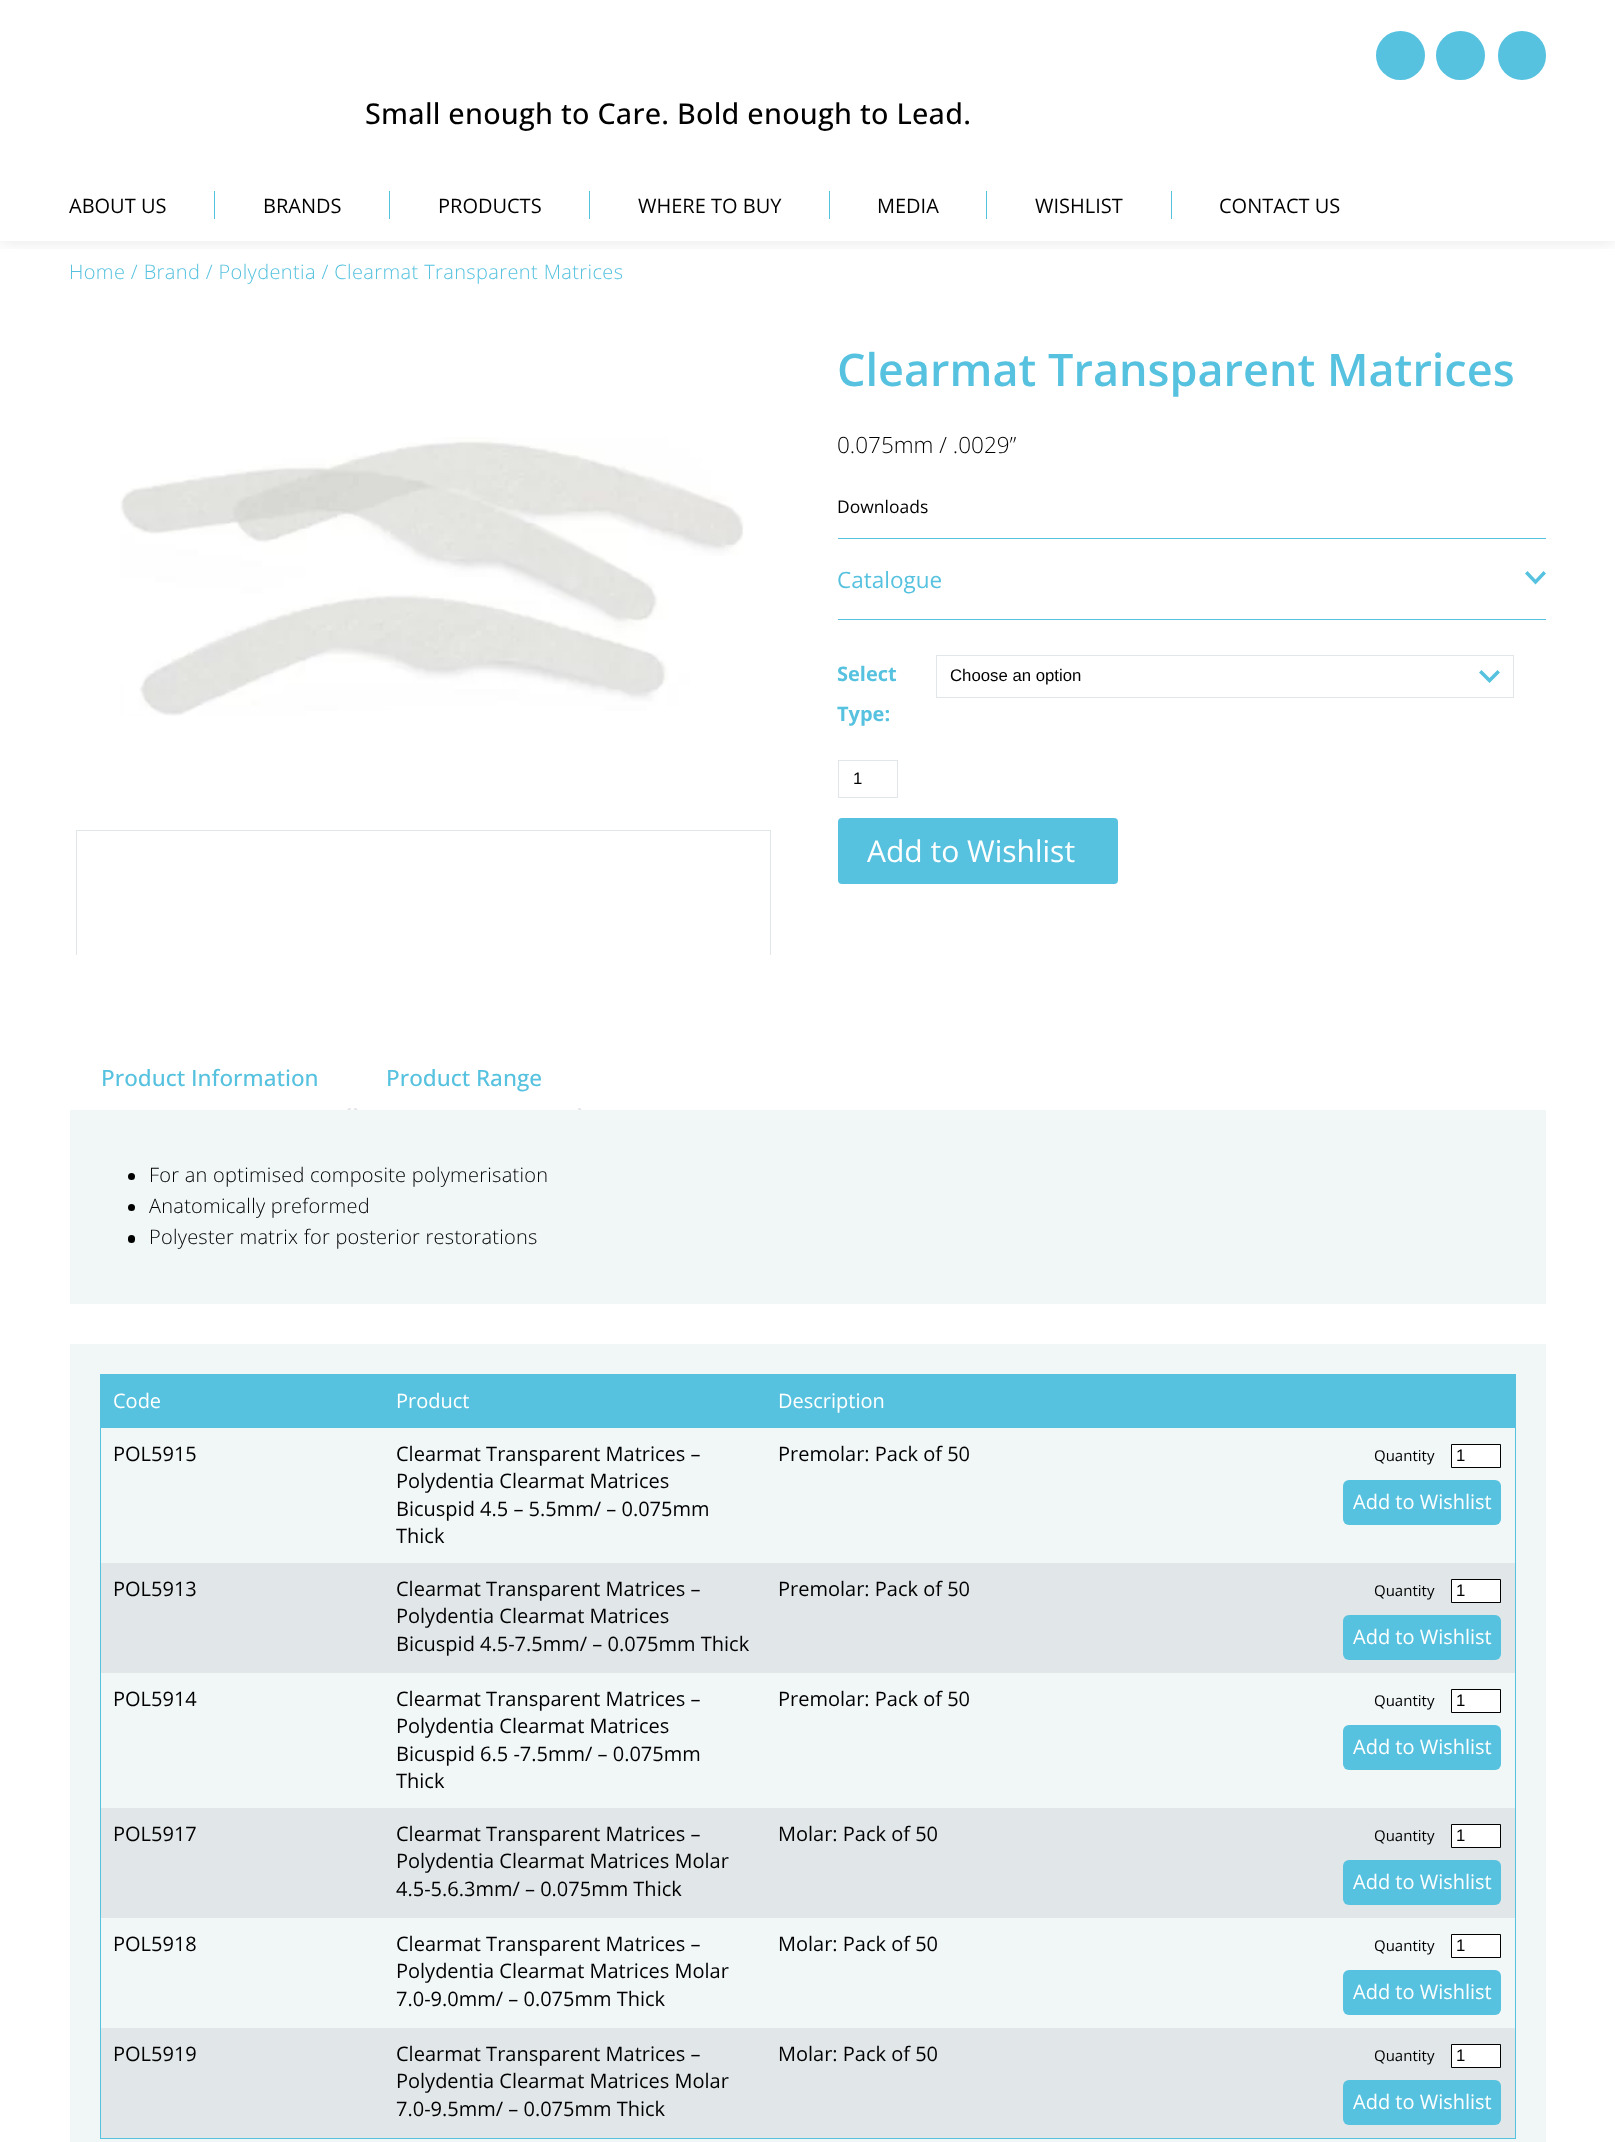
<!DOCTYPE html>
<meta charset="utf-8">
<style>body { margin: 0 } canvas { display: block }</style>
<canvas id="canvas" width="1615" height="2142"></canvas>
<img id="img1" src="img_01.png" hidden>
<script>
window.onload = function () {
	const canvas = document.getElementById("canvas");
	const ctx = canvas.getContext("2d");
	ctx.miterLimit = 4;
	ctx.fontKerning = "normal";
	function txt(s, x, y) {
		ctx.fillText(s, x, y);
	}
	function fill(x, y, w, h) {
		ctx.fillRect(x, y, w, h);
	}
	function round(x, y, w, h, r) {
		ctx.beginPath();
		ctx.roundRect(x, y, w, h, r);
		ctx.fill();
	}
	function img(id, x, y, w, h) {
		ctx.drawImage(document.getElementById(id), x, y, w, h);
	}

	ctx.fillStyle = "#FFFFFF";
	fill(0, 0, 1615, 2142);
	ctx.save();
	ctx.beginPath();
	ctx.rect(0, 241, 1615, 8);
	ctx.clip();
	ctx.fillStyle = "rgba(0, 0, 0, 0.1)";
	ctx.filter = "blur(9.5px)";
	ctx.beginPath();
	ctx.rect(0, 0, 1615, 241);
	ctx.fill();
	ctx.filter = "none";
	ctx.restore();
	ctx.fillStyle = "#56C2DF";
	ctx.beginPath();
	ctx.arc(1400.5, 55.5, 24.5, 0, Math.PI * 2);
	ctx.fill();
	ctx.beginPath();
	ctx.arc(1460.5, 55.5, 24.5, 0, Math.PI * 2);
	ctx.fill();
	round(1498, 31, 48, 49, 24);
	fill(214, 191, 1, 28);
	fill(389, 191, 1, 28);
	fill(589, 191, 1, 28);
	fill(829, 191, 1, 28);
	fill(986, 191, 1, 28);
	fill(1171, 191, 1, 28);
	img("img1", 120, 437, 624, 279);
	ctx.save();
	ctx.beginPath();
	ctx.rect(70, 830, 708, 125);
	ctx.clip();
	ctx.strokeStyle = "#E1E6E8";
	ctx.strokeRect(76.5, 830.5, 694, 127);
	ctx.restore();
	fill(838, 538, 708, 1);
	fill(838, 619, 708, 1);
	ctx.beginPath();
	ctx.moveTo(1546, 573.5);
	ctx.lineTo(1543.5, 571);
	ctx.lineTo(1535.5, 579.5);
	ctx.lineTo(1527.5, 571);
	ctx.lineTo(1525, 573.5);
	ctx.lineTo(1535.5, 584.5);
	ctx.closePath();
	ctx.fill();
	ctx.beginPath();
	ctx.moveTo(1500, 672.5);
	ctx.lineTo(1497.5, 670);
	ctx.lineTo(1489.5, 678);
	ctx.lineTo(1481.5, 670);
	ctx.lineTo(1479, 672.5);
	ctx.lineTo(1489.5, 683);
	ctx.closePath();
	ctx.fill();
	ctx.strokeStyle = "#E1E6E8";
	ctx.strokeRect(936.5, 655.5, 577, 42);
	ctx.strokeRect(838.5, 760.5, 59, 37);
	round(838, 818, 280, 66, 4);
	ctx.save();
	ctx.beginPath();
	ctx.rect(70, 1045, 1476, 65);
	ctx.clip();
	ctx.fillStyle = "#E9E6ED";
	ctx.beginPath();
	ctx.moveTo(354, 1108);
	ctx.bezierCurveTo(354, 1112, 356, 1114, 360, 1114);
	ctx.lineTo(360, 1111);
	ctx.bezierCurveTo(358.5, 1110.5, 357, 1109.5, 356.5, 1108);
	ctx.closePath();
	ctx.fill();
	ctx.beginPath();
	ctx.moveTo(345, 1111);
	ctx.lineTo(345, 1114);
	ctx.bezierCurveTo(349, 1114, 351, 1112, 351, 1108);
	ctx.lineTo(348.5, 1108);
	ctx.bezierCurveTo(348, 1109.5, 346.5, 1110.5, 345, 1111);
	ctx.closePath();
	ctx.fill();
	ctx.beginPath();
	ctx.moveTo(578, 1108);
	ctx.bezierCurveTo(578, 1112, 580, 1114, 584, 1114);
	ctx.lineTo(584, 1111);
	ctx.bezierCurveTo(582.5, 1111, 581, 1109.5, 580.5, 1108);
	ctx.closePath();
	ctx.fill();
	ctx.restore();
	ctx.fillStyle = "#F1F6F7";
	fill(70, 1110, 1476, 194);
	ctx.fillStyle = "#000000";
	ctx.beginPath();
	ctx.arc(131.5, 1176.5, 3.5, 0, Math.PI * 2);
	ctx.fill();
	ctx.beginPath();
	ctx.arc(131.5, 1207.5, 3.5, 0, Math.PI * 2);
	ctx.fill();
	round(128, 1235, 7, 8, 3.5);
	ctx.fillStyle = "#F1F6F7";
	fill(70, 1344, 1476, 798);
	ctx.strokeStyle = "#56C2DF";
	ctx.strokeRect(100.5, 1374.5, 1415, 764);
	ctx.fillStyle = "#56C2DF";
	fill(101, 1375, 1414, 53);
	ctx.fillStyle = "#FFFFFF";
	ctx.beginPath();
	ctx.rect(1451.5, 1444.5, 49, 23);
	ctx.fill();
	ctx.strokeStyle = "#000000";
	ctx.stroke();
	ctx.fillStyle = "#56C2DF";
	round(1343, 1480, 158, 45, 6);
	ctx.fillStyle = "#E1E6E8";
	fill(101, 1563, 1414, 110);
	ctx.fillStyle = "#FFFFFF";
	ctx.beginPath();
	ctx.rect(1451.5, 1579.5, 49, 23);
	ctx.fill();
	ctx.stroke();
	ctx.fillStyle = "#56C2DF";
	round(1343, 1615, 158, 45, 6);
	ctx.fillStyle = "#FFFFFF";
	ctx.beginPath();
	ctx.rect(1451.5, 1689.5, 49, 23);
	ctx.fill();
	ctx.stroke();
	ctx.fillStyle = "#56C2DF";
	round(1343, 1725, 158, 45, 6);
	ctx.fillStyle = "#E1E6E8";
	fill(101, 1808, 1414, 110);
	ctx.fillStyle = "#FFFFFF";
	ctx.beginPath();
	ctx.rect(1451.5, 1824.5, 49, 23);
	ctx.fill();
	ctx.stroke();
	ctx.fillStyle = "#56C2DF";
	round(1343, 1860, 158, 45, 6);
	ctx.fillStyle = "#FFFFFF";
	ctx.beginPath();
	ctx.rect(1451.5, 1934.5, 49, 23);
	ctx.fill();
	ctx.stroke();
	ctx.fillStyle = "#56C2DF";
	round(1343, 1970, 158, 45, 6);
	ctx.fillStyle = "#E1E6E8";
	fill(101, 2028, 1414, 110);
	ctx.fillStyle = "#FFFFFF";
	ctx.beginPath();
	ctx.rect(1451.5, 2044.5, 49, 23);
	ctx.fill();
	ctx.stroke();
	ctx.fillStyle = "#56C2DF";
	round(1343, 2080, 158, 45, 6);
	ctx.letterSpacing = "0.25px";
	ctx.font = "500 28.75px Open Sans";
	ctx.fillStyle = "#000000";
	txt("Small enough to Care. Bold enough to Lead.", 365, 124);
	ctx.letterSpacing = "0px";
	ctx.font = "20px Open Sans";
	txt("ABOUT US", 69, 213);
	txt("BRANDS", 263, 213);
	txt("PRODUCTS", 438, 213);
	txt("WHERE TO BUY", 638, 213);
	txt("MEDIA", 877, 213);
	txt("WISHLIST", 1035, 213);
	txt("CONTACT US", 1219, 213);
	ctx.letterSpacing = "0.38px";
	ctx.font = "300 20px Open Sans";
	ctx.fillStyle = "#56C2DF";
	txt("Home / Brand / Polydentia / Clearmat Transparent Matrices", 69, 279);
	ctx.letterSpacing = "0px";
	ctx.font = "600 45px Open Sans";
	txt("Clearmat Transparent Matrices", 837, 386);
	ctx.font = "300 22.5px Open Sans";
	ctx.fillStyle = "#000000";
	txt("0.075mm / .0029”", 837, 453);
	ctx.font = "17.5px Open Sans";
	txt("Downloads", 837, 513);
	ctx.font = "22.5px Open Sans";
	ctx.fillStyle = "#56C2DF";
	txt("Catalogue", 837, 588);
	ctx.font = "bold 20px Open Sans";
	txt("Select", 837, 681);
	txt("Type:", 837, 721);
	ctx.font = "16.75px Liberation Sans";
	ctx.fillStyle = "#000000";
	txt("Choose an option", 950, 681);
	txt("1", 853, 784);
	ctx.font = "30px Open Sans";
	ctx.fillStyle = "#FFFFFF";
	txt("Add to Wishlist", 867, 862);
	ctx.font = "500 22.5px Open Sans";
	ctx.fillStyle = "#56C2DF";
	txt("Product Information", 101, 1086);
	txt("Product Range", 386, 1086);
	ctx.letterSpacing = "0.25px";
	ctx.font = "300 20px Open Sans";
	ctx.fillStyle = "#000000";
	txt("For an optimised composite polymerisation", 149, 1182);
	txt("Anatomically preformed", 149, 1213);
	txt("Polyester matrix for posterior restorations", 149, 1244);
	ctx.letterSpacing = "0px";
	ctx.font = "20px Open Sans";
	ctx.fillStyle = "#FFFFFF";
	txt("Code", 113, 1408);
	txt("Product", 396, 1408);
	txt("Description", 778, 1408);
	ctx.fillStyle = "#000000";
	txt("POL5915", 113, 1461);
	txt("Clearmat Transparent Matrices –", 396, 1461);
	txt("Polydentia Clearmat Matrices", 396, 1488);
	txt("Bicuspid 4.5 – 5.5mm/ – 0.075mm", 396, 1516);
	txt("Thick", 396, 1543);
	txt("Premolar: Pack of 50", 778, 1461);
	ctx.font = "15px Open Sans";
	txt("Quantity", 1374, 1461);
	ctx.font = "16.75px Liberation Sans";
	txt("1", 1456, 1461);
	ctx.font = "20px Open Sans";
	ctx.fillStyle = "#FFFFFF";
	txt("Add to Wishlist", 1353, 1509);
	ctx.fillStyle = "#000000";
	txt("POL5913", 113, 1596);
	txt("Clearmat Transparent Matrices –", 396, 1596);
	txt("Polydentia Clearmat Matrices", 396, 1623);
	txt("Bicuspid 4.5-7.5mm/ – 0.075mm Thick", 396, 1651);
	txt("Premolar: Pack of 50", 778, 1596);
	ctx.font = "15px Open Sans";
	txt("Quantity", 1374, 1596);
	ctx.font = "16.75px Liberation Sans";
	txt("1", 1456, 1596);
	ctx.font = "20px Open Sans";
	ctx.fillStyle = "#FFFFFF";
	txt("Add to Wishlist", 1353, 1644);
	ctx.fillStyle = "#000000";
	txt("POL5914", 113, 1706);
	txt("Clearmat Transparent Matrices –", 396, 1706);
	txt("Polydentia Clearmat Matrices", 396, 1733);
	txt("Bicuspid 6.5 -7.5mm/ – 0.075mm", 396, 1761);
	txt("Thick", 396, 1788);
	txt("Premolar: Pack of 50", 778, 1706);
	ctx.font = "15px Open Sans";
	txt("Quantity", 1374, 1706);
	ctx.font = "16.75px Liberation Sans";
	txt("1", 1456, 1706);
	ctx.font = "20px Open Sans";
	ctx.fillStyle = "#FFFFFF";
	txt("Add to Wishlist", 1353, 1754);
	ctx.fillStyle = "#000000";
	txt("POL5917", 113, 1841);
	txt("Clearmat Transparent Matrices –", 396, 1841);
	txt("Polydentia Clearmat Matrices Molar", 396, 1868);
	txt("4.5-5.6.3mm/ – 0.075mm Thick", 396, 1896);
	txt("Molar: Pack of 50", 778, 1841);
	ctx.font = "15px Open Sans";
	txt("Quantity", 1374, 1841);
	ctx.font = "16.75px Liberation Sans";
	txt("1", 1456, 1841);
	ctx.font = "20px Open Sans";
	ctx.fillStyle = "#FFFFFF";
	txt("Add to Wishlist", 1353, 1889);
	ctx.fillStyle = "#000000";
	txt("POL5918", 113, 1951);
	txt("Clearmat Transparent Matrices –", 396, 1951);
	txt("Polydentia Clearmat Matrices Molar", 396, 1978);
	txt("7.0-9.0mm/ – 0.075mm Thick", 396, 2006);
	txt("Molar: Pack of 50", 778, 1951);
	ctx.font = "15px Open Sans";
	txt("Quantity", 1374, 1951);
	ctx.font = "16.75px Liberation Sans";
	txt("1", 1456, 1951);
	ctx.font = "20px Open Sans";
	ctx.fillStyle = "#FFFFFF";
	txt("Add to Wishlist", 1353, 1999);
	ctx.fillStyle = "#000000";
	txt("POL5919", 113, 2061);
	txt("Clearmat Transparent Matrices –", 396, 2061);
	txt("Polydentia Clearmat Matrices Molar", 396, 2088);
	txt("7.0-9.5mm/ – 0.075mm Thick", 396, 2116);
	txt("Molar: Pack of 50", 778, 2061);
	ctx.font = "15px Open Sans";
	txt("Quantity", 1374, 2061);
	ctx.font = "16.75px Liberation Sans";
	txt("1", 1456, 2061);
	ctx.font = "20px Open Sans";
	ctx.fillStyle = "#FFFFFF";
	txt("Add to Wishlist", 1353, 2109);
};
</script>
